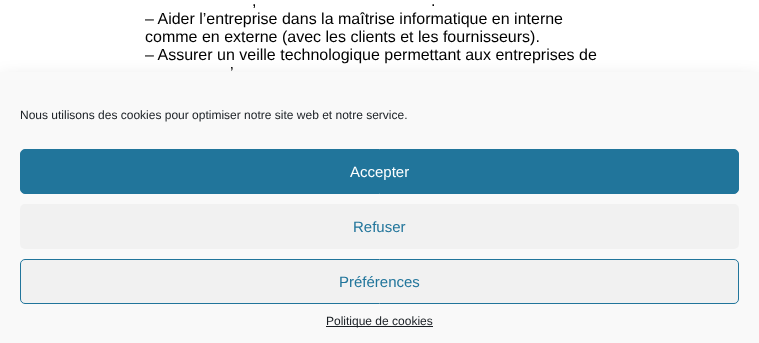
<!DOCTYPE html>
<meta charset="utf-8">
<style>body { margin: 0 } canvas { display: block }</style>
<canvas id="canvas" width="759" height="343"></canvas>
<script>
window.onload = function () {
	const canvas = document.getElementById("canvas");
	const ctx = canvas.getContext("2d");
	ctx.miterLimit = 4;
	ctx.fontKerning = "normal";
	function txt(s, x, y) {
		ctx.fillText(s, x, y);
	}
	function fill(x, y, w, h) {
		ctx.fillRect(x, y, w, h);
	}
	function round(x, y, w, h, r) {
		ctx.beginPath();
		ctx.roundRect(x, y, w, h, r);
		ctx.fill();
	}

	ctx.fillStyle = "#FFFFFF";
	fill(0, 0, 759, 343);
	ctx.fillStyle = "rgba(0, 0, 0, 0.19)";
	ctx.filter = "blur(10px)";
	ctx.beginPath();
	ctx.rect(0, 81, 759, 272);
	ctx.fill();
	ctx.filter = "none";
	ctx.fillStyle = "#F9F9F9";
	fill(0, 72, 759, 271);
	ctx.fillStyle = "#21759B";
	ctx.beginPath();
	ctx.roundRect(20.5, 149.5, 718, 44, 4.5);
	ctx.fill();
	ctx.strokeStyle = "#21759B";
	ctx.stroke();
	ctx.fillStyle = "#F1F1F1";
	round(20, 204, 719, 45, 5);
	ctx.beginPath();
	ctx.roundRect(20.5, 259.5, 718, 44, 4.5);
	ctx.fill();
	ctx.stroke();
	ctx.fillStyle = "#191E23";
	fill(326, 326, 107, 1);
	ctx.font = "16px Liberation Sans";
	ctx.fillStyle = "#000000";
	txt(",", 252, 6);
	txt(".", 431, 6);
	txt("– Aider l’entreprise dans la maîtrise informatique en interne", 145, 24);
	txt("comme en externe (avec les clients et les fournisseurs).", 145, 42);
	txt("– Assurer un veille technologique permettant aux entreprises de", 145, 60);
	txt("’", 230, 78);
	ctx.font = "12px Liberation Sans";
	ctx.fillStyle = "#191E23";
	txt("Nous utilisons des cookies pour optimiser notre site web et notre service.", 20, 119);
	ctx.font = "15px Liberation Sans";
	ctx.fillStyle = "#FFFFFF";
	txt("Accepter", 350, 177);
	ctx.fillStyle = "#21759B";
	txt("Refuser", 353, 232);
	txt("Préférences", 339, 287);
	ctx.font = "12px Liberation Sans";
	ctx.fillStyle = "#191E23";
	txt("Politique de cookies", 326, 325);
};
</script>
